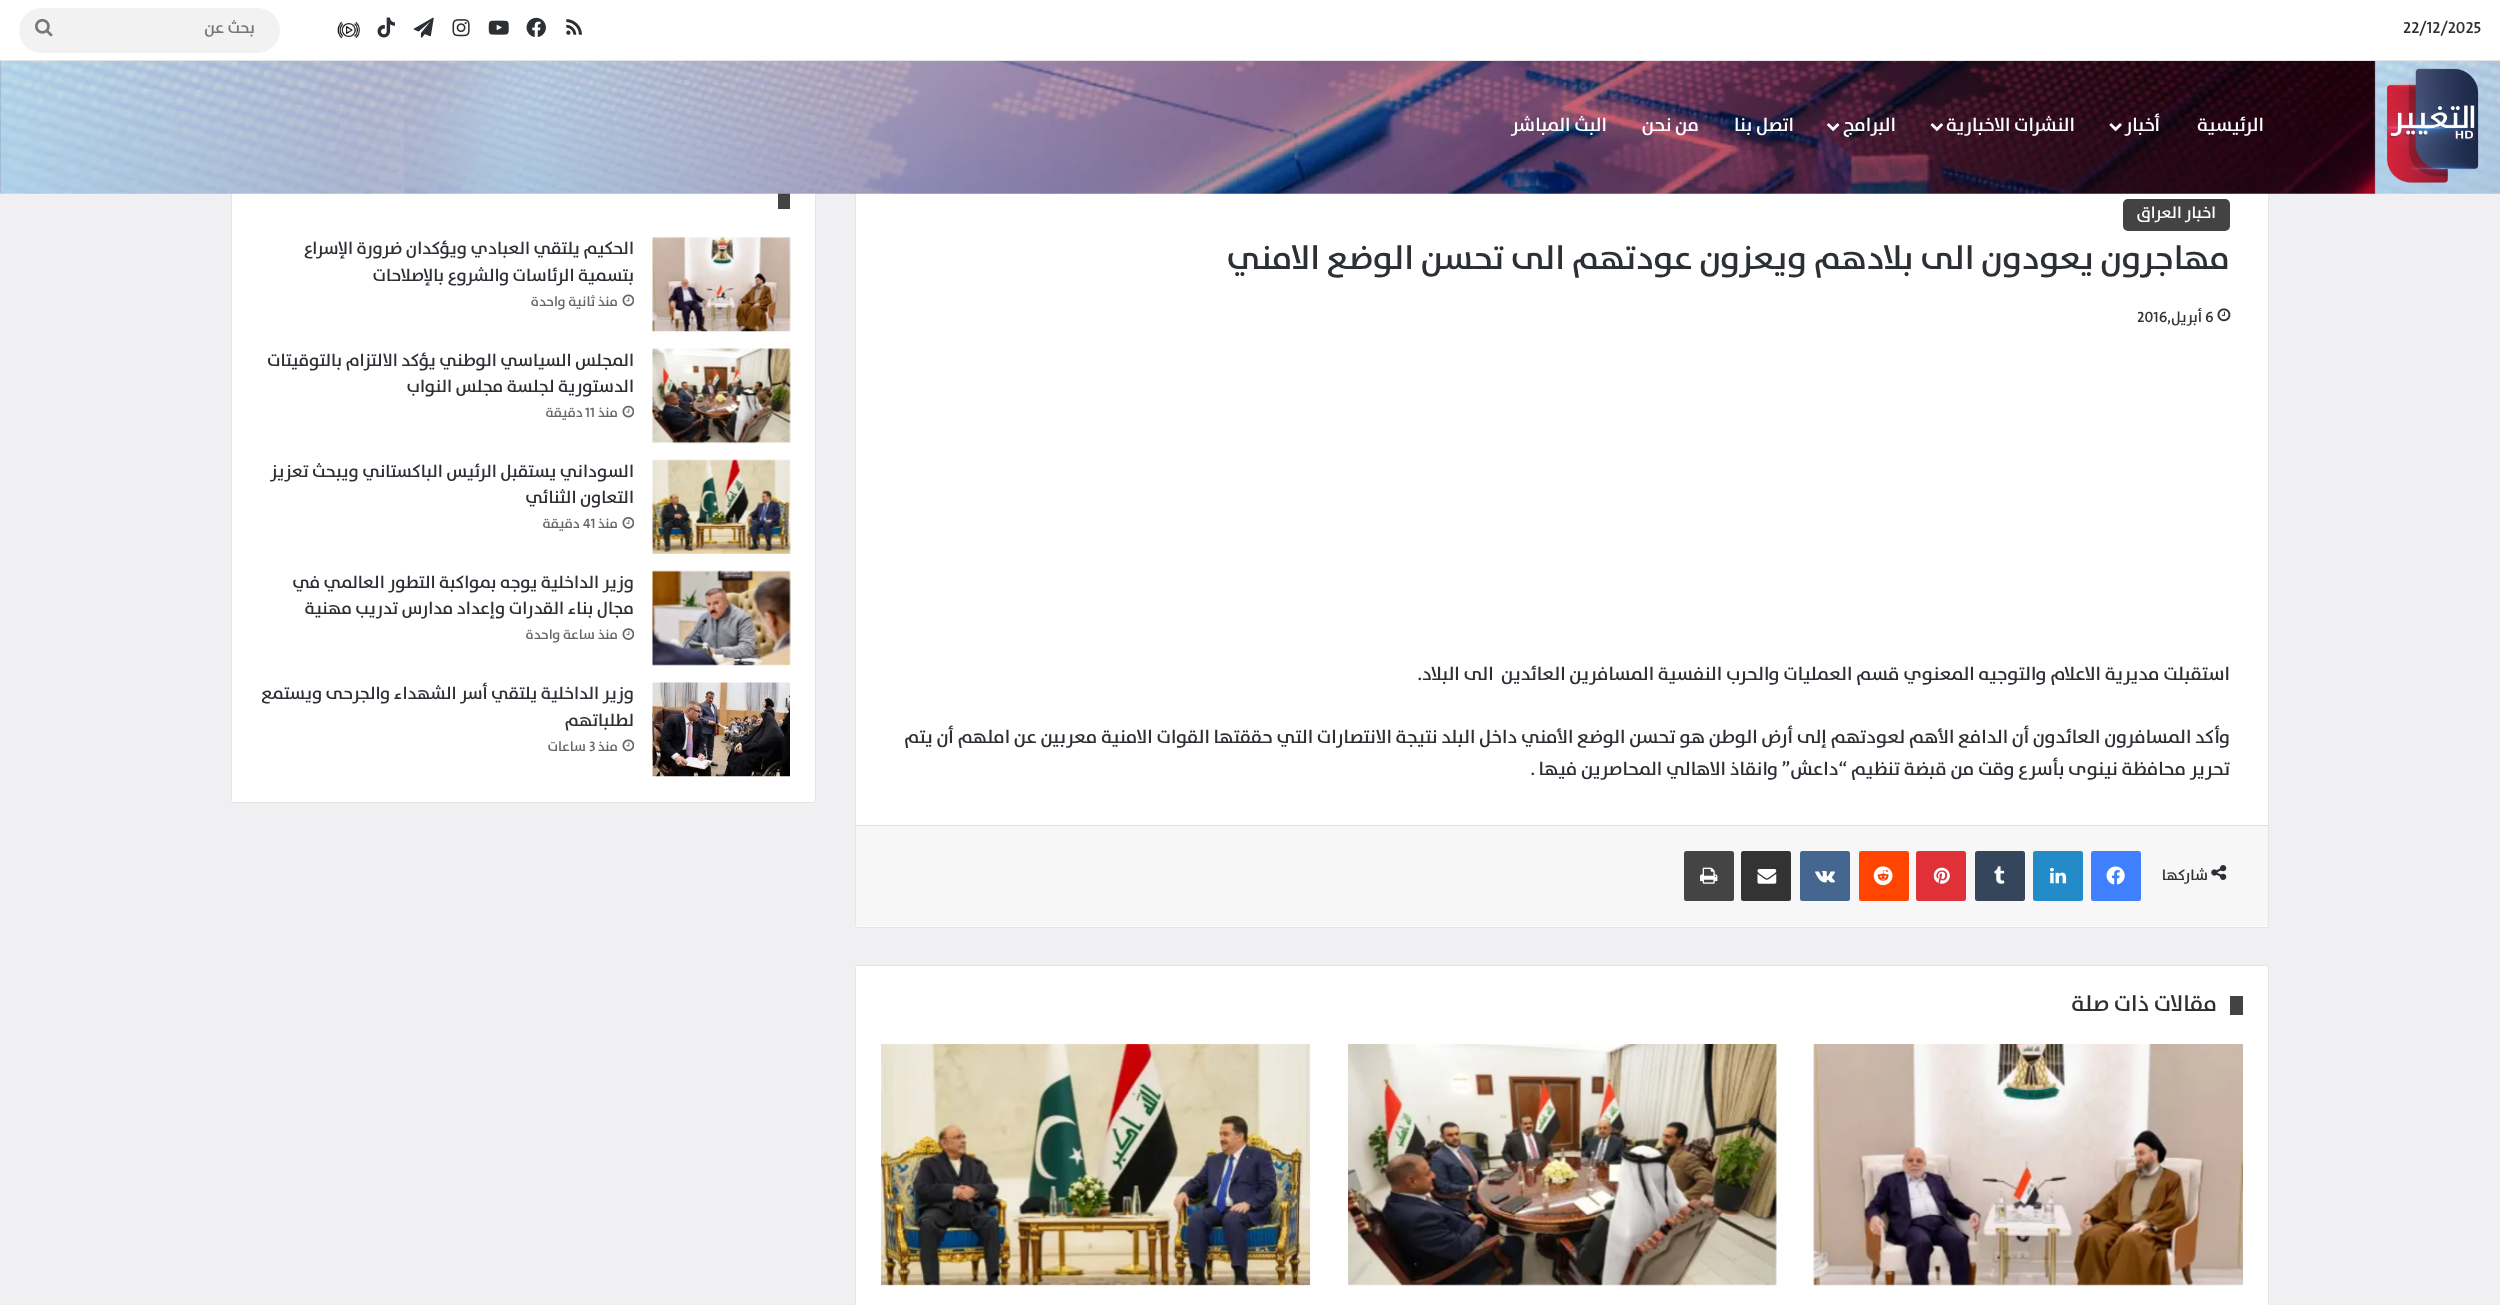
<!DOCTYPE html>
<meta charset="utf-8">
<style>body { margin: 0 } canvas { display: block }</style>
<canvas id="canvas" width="2500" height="1305"></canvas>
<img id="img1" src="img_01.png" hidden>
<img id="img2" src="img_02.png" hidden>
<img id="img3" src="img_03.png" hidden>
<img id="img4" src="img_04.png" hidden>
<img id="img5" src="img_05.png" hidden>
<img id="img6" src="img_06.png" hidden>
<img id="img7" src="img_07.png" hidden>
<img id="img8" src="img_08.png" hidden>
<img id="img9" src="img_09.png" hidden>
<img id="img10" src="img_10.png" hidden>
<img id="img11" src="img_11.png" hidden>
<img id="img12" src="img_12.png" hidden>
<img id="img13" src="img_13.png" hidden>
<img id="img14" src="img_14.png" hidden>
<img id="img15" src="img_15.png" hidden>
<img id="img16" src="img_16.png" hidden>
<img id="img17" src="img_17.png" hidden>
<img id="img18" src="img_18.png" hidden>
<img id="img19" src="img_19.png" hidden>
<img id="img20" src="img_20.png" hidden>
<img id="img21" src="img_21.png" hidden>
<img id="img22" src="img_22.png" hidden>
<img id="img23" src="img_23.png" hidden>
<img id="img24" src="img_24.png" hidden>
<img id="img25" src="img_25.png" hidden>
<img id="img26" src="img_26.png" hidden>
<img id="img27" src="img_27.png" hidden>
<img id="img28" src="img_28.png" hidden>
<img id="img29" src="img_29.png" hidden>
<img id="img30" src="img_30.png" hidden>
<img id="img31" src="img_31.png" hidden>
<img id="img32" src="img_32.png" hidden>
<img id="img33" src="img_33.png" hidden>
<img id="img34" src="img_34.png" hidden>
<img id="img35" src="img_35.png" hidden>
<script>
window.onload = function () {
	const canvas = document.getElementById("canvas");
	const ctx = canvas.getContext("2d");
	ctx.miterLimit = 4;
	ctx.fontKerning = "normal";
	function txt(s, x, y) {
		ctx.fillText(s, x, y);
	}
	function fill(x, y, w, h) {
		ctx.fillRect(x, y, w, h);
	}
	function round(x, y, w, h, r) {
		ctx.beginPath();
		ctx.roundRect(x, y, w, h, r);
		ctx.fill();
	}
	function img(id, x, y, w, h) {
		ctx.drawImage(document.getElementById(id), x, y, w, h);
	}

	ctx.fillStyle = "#F0F0F2";
	fill(0, 0, 2500, 1305);
	ctx.fillStyle = "#FFFFFF";
	fill(0, 0, 2500, 60);
	ctx.fillStyle = "#E6E6E6";
	fill(0, 60, 2500, 1);
	img("img1", 566, 19, 16, 16);
	img("img2", 526, 17, 20, 20);
	img("img3", 488, 20, 21, 15);
	img("img4", 452, 19, 18, 18);
	img("img5", 413, 17, 21, 21);
	img("img6", 377, 17, 18, 21);
	img("img7", 337, 21, 23, 18);
	ctx.fillStyle = "#F2F2F2";
	round(19, 8, 261, 45, 22.5);
	img("img8", 35, 18, 18, 19);
	ctx.fillStyle = "#FFFFFF";
	round(855, 160, 1414, 768, 2.5);
	ctx.beginPath();
	ctx.roundRect(855.5, 160.5, 1413, 767, 2);
	ctx.strokeStyle = "rgba(0, 0, 0, 0.1)";
	ctx.stroke();
	round(231, 160, 585, 643, 2.5);
	ctx.beginPath();
	ctx.roundRect(231.5, 160.5, 584, 642, 2);
	ctx.stroke();
	ctx.fillStyle = "#434343";
	fill(778, 193, 12, 16);
	img("img9", 0, 61, 2500, 133);
	img("img10", 2384, 68, 95, 115);
	img("img11", 2109, 123, 13, 9);
	img("img12", 1930, 123, 13, 9);
	img("img13", 1827, 123, 13, 9);
	round(2123, 199, 107, 32, 5);
	img("img14", 2217, 308, 14, 14);
	ctx.fillStyle = "#F7F7F7";
	fill(856, 826, 1412, 100);
	ctx.fillStyle = "#DEDEDE";
	fill(856, 825, 1412, 1);
	img("img15", 2211, 865, 16, 15);
	ctx.fillStyle = "#4080FF";
	round(2091, 851, 50, 50, 2.5);
	img("img16", 2106, 866, 19, 19);
	ctx.fillStyle = "#238CC8";
	round(2033, 851, 50, 50, 2.5);
	img("img17", 2050, 867, 17, 17);
	ctx.fillStyle = "#35465C";
	round(1975, 851, 50, 50, 2.5);
	img("img18", 1994, 866, 11, 18);
	ctx.fillStyle = "#E13138";
	round(1916, 851, 50, 50, 2.5);
	img("img19", 1933, 867, 17, 17);
	ctx.fillStyle = "#FF4500";
	round(1859, 851, 50, 50, 2.5);
	img("img20", 1873, 866, 20, 20);
	ctx.fillStyle = "#45668E";
	round(1800, 851, 50, 50, 2.5);
	img("img21", 1815, 870, 21, 13);
	ctx.fillStyle = "#333333";
	round(1741, 851, 50, 50, 2.5);
	img("img22", 1757, 869, 20, 15);
	ctx.fillStyle = "#444444";
	round(1684, 851, 50, 50, 2.5);
	img("img23", 1700, 867, 18, 17);
	ctx.fillStyle = "#FFFFFF";
	round(855, 965, 1414, 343, 2.5);
	ctx.beginPath();
	ctx.roundRect(855.5, 965.5, 1413, 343, 2);
	ctx.stroke();
	ctx.fillStyle = "#434343";
	fill(2230, 996, 13, 19);
	img("img24", 1813, 1044, 430, 242);
	img("img25", 1348, 1044, 429, 242);
	img("img26", 881, 1044, 430, 242);
	img("img27", 652, 237, 139, 95);
	img("img28", 622, 294, 12, 13);
	img("img29", 652, 348, 139, 96);
	img("img30", 622, 405, 12, 13);
	img("img31", 652, 459, 139, 95);
	img("img32", 622, 517, 12, 12);
	img("img33", 652, 570, 139, 96);
	img("img34", 622, 628, 12, 12);
	img("img35", 652, 682, 138, 95);
	img("img28", 622, 739, 12, 13);
	ctx.font = "600 16.25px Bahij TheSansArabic";
	ctx.fillStyle = "#2C2F34";
	txt("22/12/2025", 2403, 33);
	ctx.direction = "rtl";
	ctx.fillStyle = "#757575";
	txt("بحث عن", 255, 33);
	ctx.font = "600 18.75px Bahij TheSansArabic";
	ctx.fillStyle = "#FFFFFF";
	txt("الرئيسية", 2264, 131);
	txt("أخبار", 2160, 131);
	txt("النشرات الاخبارية", 2075, 131);
	txt("البرامج", 1896, 131);
	txt("اتصل بنا", 1794, 131);
	txt("من نحن", 1699, 131);
	txt("البث المباشر", 1607, 131);
	ctx.font = "600 16.25px Bahij TheSansArabic";
	txt("اخبار العراق", 2216, 218);
	ctx.font = "600 33.75px Bahij TheSansArabic";
	ctx.fillStyle = "#2C2F34";
	txt("مهاجرون يعودون الى بلادهم ويعزون عودتهم الى تحسن الوضع الامني", 2230, 269);
	ctx.direction = "ltr";
	ctx.font = "600 15px Bahij TheSansArabic";
	ctx.fillStyle = "#333333";
	txt("6", 2205, 322);
	ctx.direction = "rtl";
	txt("أبريل,", 2202, 322);
	ctx.direction = "ltr";
	txt("2016", 2137, 322);
	ctx.direction = "rtl";
	ctx.font = "600 18.75px Bahij TheSansArabic";
	ctx.fillStyle = "#2C2F34";
	txt("استقبلت مديرية الاعلام والتوجيه المعنوي قسم العمليات والحرب النفسية المسافرين العائدين  الى البلاد.", 2230, 680);
	txt("وأكد المسافرون العائدون أن الدافع الأهم لعودتهم إلى أرض الوطن هو تحسن الوضع الأمني داخل البلد نتيجة الانتصارات التي حققتها القوات الامنية معربين عن املهم أن يتم", 2230, 743);
	txt("تحرير محافظة نينوى بأسرع وقت من قبضة تنظيم “داعش” وانقاذ الاهالي المحاصرين فيها .", 2230, 775);
	ctx.font = "600 15px Bahij TheSansArabic";
	txt("شاركها", 2208, 880);
	ctx.font = "600 22.5px Bahij TheSansArabic";
	txt("مقالات ذات صلة", 2217, 1011);
	ctx.font = "600 17.5px Bahij TheSansArabic";
	txt("الحكيم يلتقي العبادي ويؤكدان ضرورة الإسراع", 634, 254);
	txt("بتسمية الرئاسات والشروع بالإصلاحات", 634, 281);
	ctx.font = "600 13.75px Bahij TheSansArabic";
	ctx.fillStyle = "#666666";
	txt("منذ ثانية واحدة", 618, 306);
	ctx.font = "600 17.5px Bahij TheSansArabic";
	ctx.fillStyle = "#2C2F34";
	txt("المجلس السياسي الوطني يؤكد الالتزام بالتوقيتات", 634, 366);
	txt("الدستورية لجلسة مجلس النواب", 634, 392);
	ctx.font = "600 13.75px Bahij TheSansArabic";
	ctx.fillStyle = "#666666";
	txt("منذ", 618, 417);
	ctx.direction = "ltr";
	txt("11", 585, 417);
	ctx.direction = "rtl";
	txt("دقيقة", 583, 417);
	ctx.font = "600 17.5px Bahij TheSansArabic";
	ctx.fillStyle = "#2C2F34";
	txt("السوداني يستقبل الرئيس الباكستاني ويبحث تعزيز", 634, 477);
	txt("التعاون الثنائي", 634, 503);
	ctx.font = "600 13.75px Bahij TheSansArabic";
	ctx.fillStyle = "#666666";
	txt("منذ", 618, 528);
	ctx.direction = "ltr";
	txt("41", 583, 528);
	ctx.direction = "rtl";
	txt("دقيقة", 580, 528);
	ctx.font = "600 17.5px Bahij TheSansArabic";
	ctx.fillStyle = "#2C2F34";
	txt("وزير الداخلية يوجه بمواكبة التطور العالمي في", 634, 588);
	txt("مجال بناء القدرات وإعداد مدارس تدريب مهنية", 634, 614);
	ctx.font = "600 13.75px Bahij TheSansArabic";
	ctx.fillStyle = "#666666";
	txt("منذ ساعة واحدة", 618, 639);
	ctx.font = "600 17.5px Bahij TheSansArabic";
	ctx.fillStyle = "#2C2F34";
	txt("وزير الداخلية يلتقي أسر الشهداء والجرحى ويستمع", 634, 699);
	txt("لطلباتهم", 634, 726);
	ctx.font = "600 13.75px Bahij TheSansArabic";
	ctx.fillStyle = "#666666";
	txt("منذ", 618, 751);
	ctx.direction = "ltr";
	txt("3", 589, 751);
	ctx.direction = "rtl";
	txt("ساعات", 586, 751);
};
</script>
